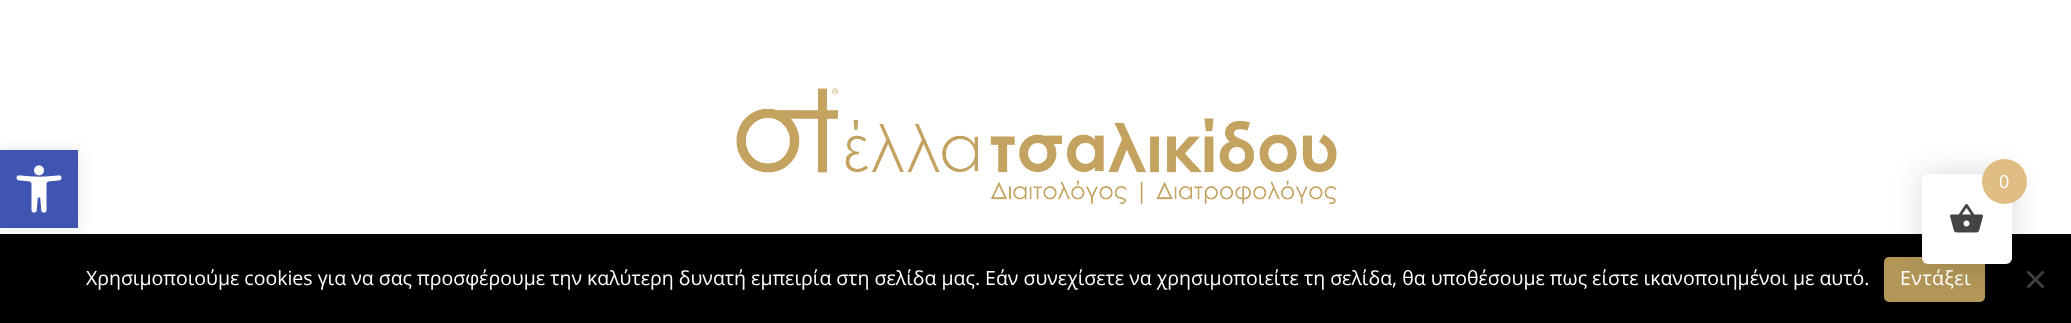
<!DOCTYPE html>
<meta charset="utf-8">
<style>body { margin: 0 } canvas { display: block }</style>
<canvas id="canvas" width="2071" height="323"></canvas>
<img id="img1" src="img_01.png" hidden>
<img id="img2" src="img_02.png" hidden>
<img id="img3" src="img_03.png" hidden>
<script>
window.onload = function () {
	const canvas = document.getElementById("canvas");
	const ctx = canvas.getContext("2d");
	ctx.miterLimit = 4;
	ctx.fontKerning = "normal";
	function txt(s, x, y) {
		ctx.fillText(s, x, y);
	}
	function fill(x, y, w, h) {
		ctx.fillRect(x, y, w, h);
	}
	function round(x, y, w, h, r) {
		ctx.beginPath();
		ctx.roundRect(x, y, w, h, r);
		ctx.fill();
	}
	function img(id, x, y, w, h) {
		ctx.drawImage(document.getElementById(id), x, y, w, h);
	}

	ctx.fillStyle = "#FFFFFF";
	fill(0, 0, 2071, 323);
	ctx.fillStyle = "rgba(0, 0, 0, 0.1)";
	ctx.filter = "blur(7.5px)";
	ctx.beginPath();
	ctx.rect(0, 150, 78, 78);
	ctx.fill();
	ctx.filter = "none";
	ctx.fillStyle = "#4054B2";
	fill(0, 150, 78, 78);
	img("img1", 16, 165, 46, 48);
	img("img2", 736, 88, 601, 116);
	ctx.fillStyle = "#000000";
	fill(0, 234, 2071, 89);
	ctx.fillStyle = "#B39759";
	round(1884, 257, 101, 45, 5);
	ctx.fillStyle = "#404040";
	ctx.beginPath();
	ctx.moveTo(2042.5, 270.5);
	ctx.lineTo(2044.5, 272.5);
	ctx.lineTo(2028.5, 288.5);
	ctx.lineTo(2026.5, 286.5);
	ctx.closePath();
	ctx.fill();
	ctx.beginPath();
	ctx.moveTo(2026.5, 272.5);
	ctx.lineTo(2028.5, 270.5);
	ctx.lineTo(2044.5, 286.5);
	ctx.lineTo(2042.5, 288.5);
	ctx.closePath();
	ctx.fill();
	ctx.fillStyle = "rgba(0, 0, 0, 0.15)";
	ctx.filter = "blur(15px)";
	ctx.beginPath();
	ctx.roundRect(1922, 174, 90, 90, 6);
	ctx.fill();
	ctx.filter = "none";
	ctx.fillStyle = "#FFFFFF";
	round(1922, 174, 90, 90, 6);
	ctx.fillStyle = "#DFBD84";
	ctx.beginPath();
	ctx.arc(2004.5, 181.5, 22.5, 0, Math.PI * 2);
	ctx.fill();
	img("img3", 1950, 204, 33, 29);
	ctx.font = "18px Open Sans";
	ctx.fillStyle = "#FFFFFF";
	txt("0", 1999, 188);
	ctx.font = "19.5px Open Sans";
	txt("Χρησιμοποιούμε cookies για να σας προσφέρουμε την καλύτερη δυνατή εμπειρία στη σελίδα μας. Εάν συνεχίσετε να χρησιμοποιείτε τη σελίδα, θα υποθέσουμε πως είστε ικανοποιημένοι με αυτό.", 86, 285);
	ctx.letterSpacing = "0.5px";
	txt("Εντάξει", 1900, 285);
};
</script>
